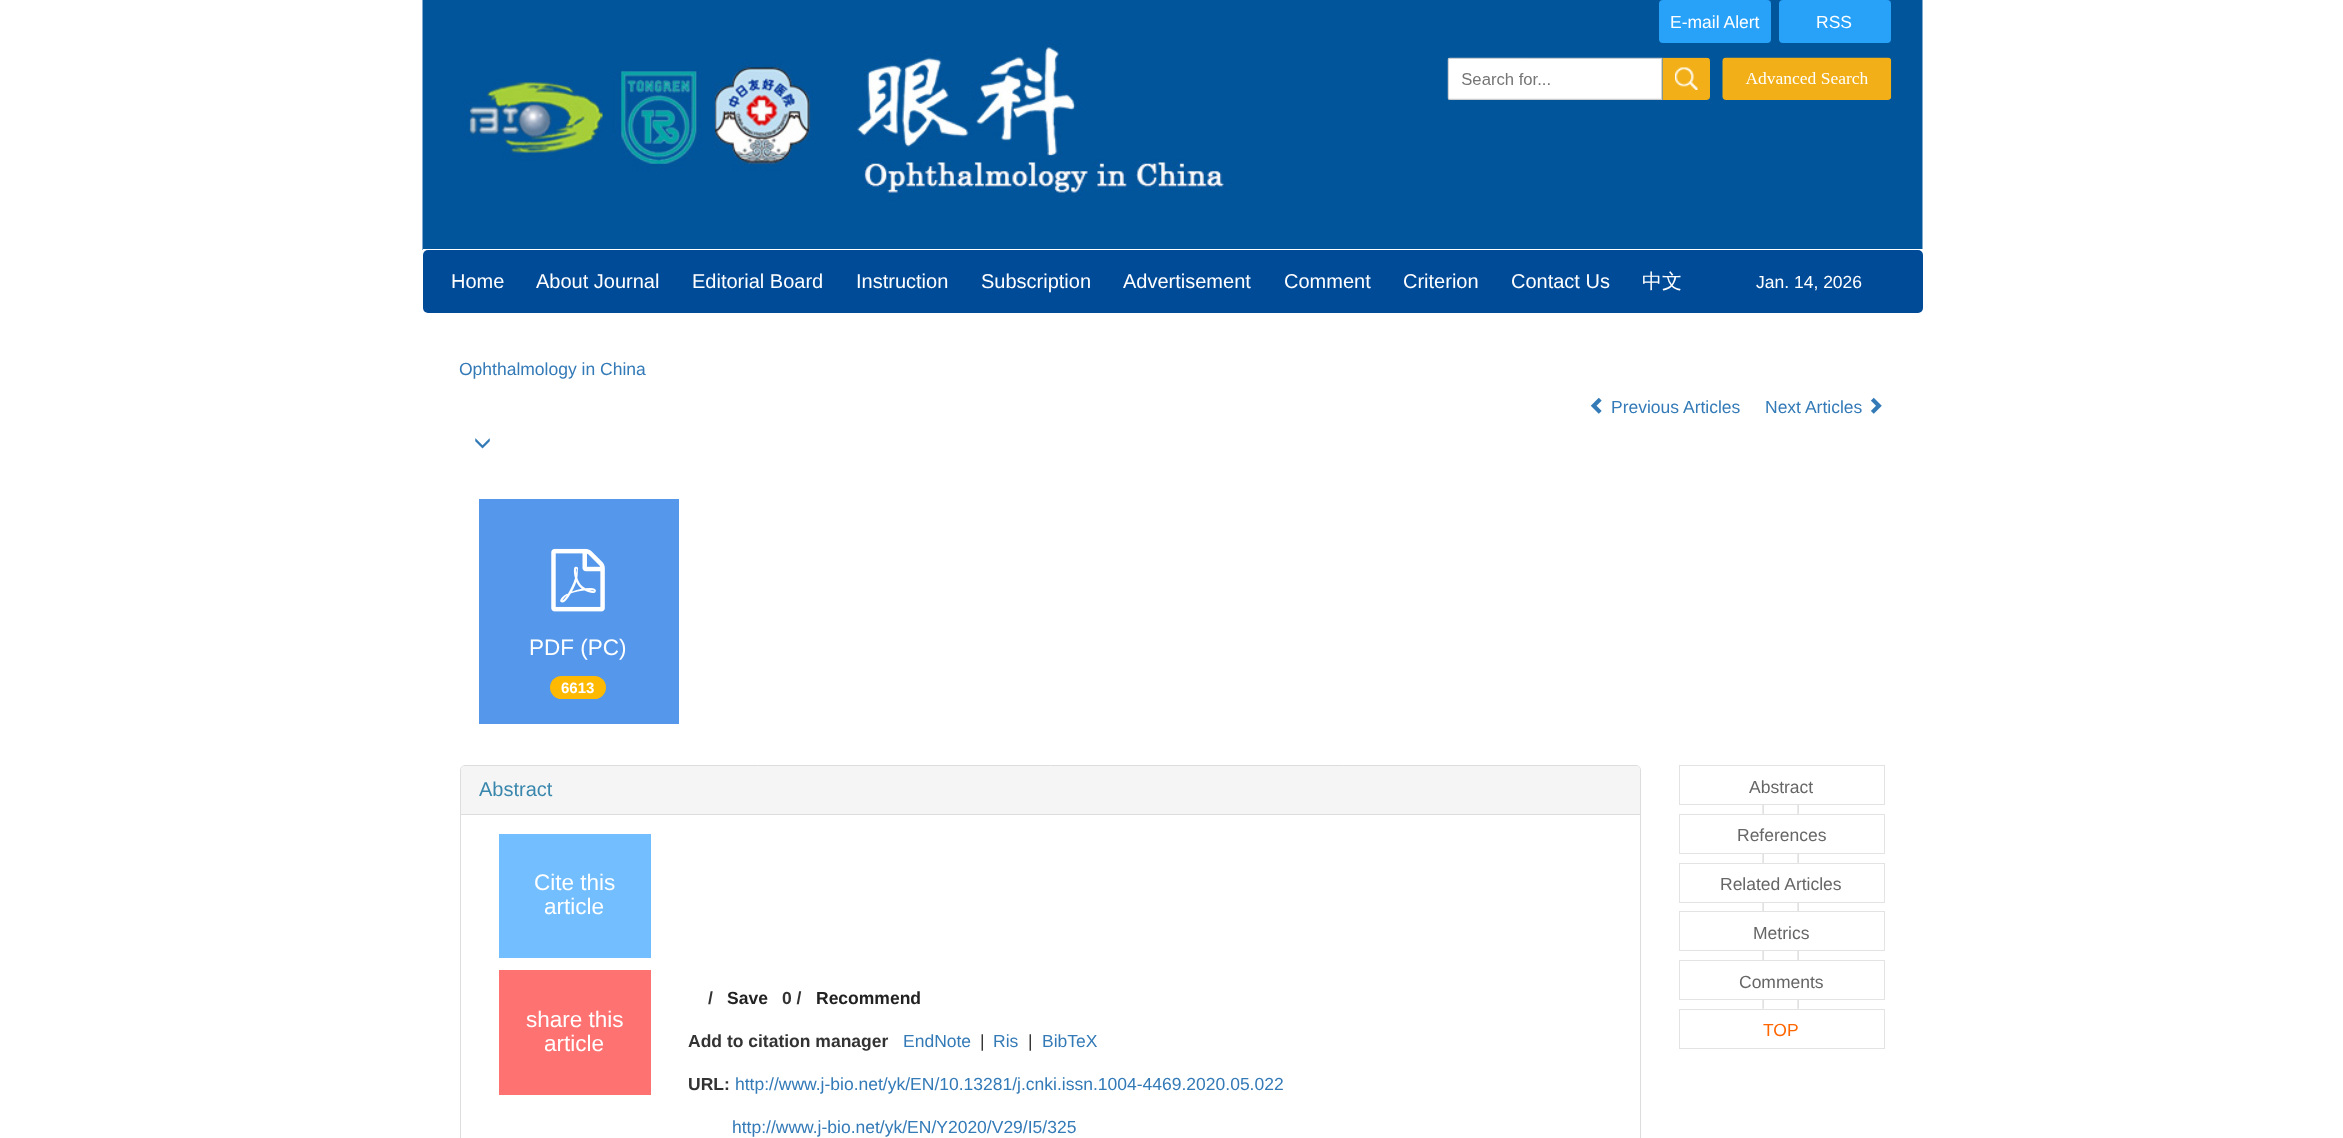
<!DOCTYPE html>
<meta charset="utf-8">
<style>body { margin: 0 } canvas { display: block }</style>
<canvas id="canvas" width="2343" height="1138"></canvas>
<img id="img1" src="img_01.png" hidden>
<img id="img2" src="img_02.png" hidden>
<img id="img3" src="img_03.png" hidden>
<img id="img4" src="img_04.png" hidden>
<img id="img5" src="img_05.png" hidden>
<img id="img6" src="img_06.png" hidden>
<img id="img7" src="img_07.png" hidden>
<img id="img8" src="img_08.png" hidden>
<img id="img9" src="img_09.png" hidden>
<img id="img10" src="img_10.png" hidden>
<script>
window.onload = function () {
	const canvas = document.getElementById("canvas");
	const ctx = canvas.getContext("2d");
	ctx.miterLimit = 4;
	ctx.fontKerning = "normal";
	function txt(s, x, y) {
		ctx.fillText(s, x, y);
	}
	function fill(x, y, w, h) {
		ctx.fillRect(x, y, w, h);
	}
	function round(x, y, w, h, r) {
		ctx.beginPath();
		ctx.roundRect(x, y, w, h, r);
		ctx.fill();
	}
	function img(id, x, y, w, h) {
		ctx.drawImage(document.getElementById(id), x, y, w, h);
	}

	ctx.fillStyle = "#FFFFFF";
	fill(0, 0, 2343, 1138);
	img("img1", 422, 0, 1501, 250);
	fill(423, 249, 1500, 1);
	ctx.fillStyle = "#28A2F9";
	round(1659, 0, 112, 43, 4);
	round(1779, 0, 112, 43, 4);
	img("img2", 1447, 57, 445, 43);
	ctx.fillStyle = "#004B98";
	round(423, 250, 1500, 63, 5);
	img("img3", 1590, 397, 12, 17);
	img("img4", 1870, 397, 12, 17);
	img("img5", 475, 438, 15, 11);
	ctx.fillStyle = "#5497EB";
	fill(479, 499, 200, 225);
	img("img6", 551, 548, 54, 64);
	ctx.fillStyle = "#FFB900";
	round(550, 676, 56, 23, 11.5);
	ctx.beginPath();
	ctx.roundRect(460.5, 765.5, 1180, 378, 4.5);
	ctx.strokeStyle = "#DDDDDD";
	ctx.stroke();
	ctx.fillStyle = "#F5F5F5";
	ctx.beginPath();
	ctx.roundRect(461, 766, 1179, 48, [4, 4, 0, 0]);
	ctx.fill();
	ctx.fillStyle = "#DDDDDD";
	fill(461, 814, 1179, 1);
	ctx.fillStyle = "#72BEFF";
	fill(499, 834, 152, 124);
	ctx.fillStyle = "#FF7272";
	fill(499, 970, 152, 125);
	img("img7", 1762, 805, 37, 9);
	ctx.strokeStyle = "#E3E3E3";
	ctx.strokeRect(1679.5, 765.5, 205, 39);
	img("img8", 1762, 813, 37, 50);
	ctx.fillStyle = "#FFFFFF";
	fill(1762, 815, 37, 38);
	ctx.strokeRect(1679.5, 814.5, 205, 39);
	img("img9", 1762, 862, 37, 49);
	fill(1762, 864, 37, 38);
	ctx.strokeRect(1679.5, 863.5, 205, 39);
	img("img10", 1762, 951, 37, 9);
	ctx.strokeRect(1679.5, 911.5, 205, 39);
	img("img7", 1762, 1000, 37, 9);
	ctx.strokeRect(1679.5, 960.5, 205, 39);
	ctx.strokeRect(1679.5, 1009.5, 205, 39);
	ctx.font = "17.5px Liberation Sans";
	txt("E-mail Alert", 1670, 28);
	txt("RSS", 1816, 28);
	ctx.font = "20px Liberation Sans";
	txt("Home", 451, 288);
	txt("About Journal", 536, 288);
	txt("Editorial Board", 692, 288);
	txt("Instruction", 856, 288);
	txt("Subscription", 981, 288);
	txt("Advertisement", 1123, 288);
	txt("Comment", 1284, 288);
	txt("Criterion", 1403, 288);
	txt("Contact Us", 1511, 288);
	ctx.font = "500 20px WenQuanYi Zen Hei";
	txt("中文", 1642, 288);
	ctx.font = "17.5px Liberation Sans";
	txt("Jan. 14, 2026", 1756, 288);
	ctx.fillStyle = "#337AB7";
	txt("Ophthalmology in China", 459, 375);
	txt("Previous Articles", 1611, 413);
	txt("Next Articles", 1765, 413);
	ctx.font = "22.5px Liberation Sans";
	ctx.fillStyle = "#FFFFFF";
	txt("PDF (PC)", 529, 655);
	ctx.font = "bold 15px Liberation Sans";
	txt("6613", 561, 693);
	ctx.font = "20px Liberation Sans";
	ctx.fillStyle = "#3A87AD";
	txt("Abstract", 479, 796);
	ctx.font = "22.5px Liberation Sans";
	ctx.fillStyle = "#FFFFFF";
	txt("Cite this", 534, 890);
	txt("article", 544, 914);
	txt("share this", 526, 1027);
	txt("article", 544, 1051);
	ctx.font = "bold 17.5px Liberation Sans";
	ctx.fillStyle = "#333333";
	txt("/", 708, 1004);
	ctx.fillStyle = "#222222";
	txt("Save", 727, 1004);
	ctx.fillStyle = "#333333";
	txt("0 /", 782, 1004);
	ctx.fillStyle = "#222222";
	txt("Recommend", 816, 1004);
	ctx.fillStyle = "#333333";
	txt("Add to citation manager", 688, 1047);
	ctx.font = "17.5px Liberation Sans";
	ctx.fillStyle = "#337AB7";
	txt("EndNote", 903, 1047);
	ctx.fillStyle = "#333333";
	txt("|", 980, 1047);
	ctx.fillStyle = "#337AB7";
	txt("Ris", 993, 1047);
	ctx.fillStyle = "#333333";
	txt("|", 1028, 1047);
	ctx.fillStyle = "#337AB7";
	txt("BibTeX", 1042, 1047);
	ctx.font = "bold 17.5px Liberation Sans";
	ctx.fillStyle = "#333333";
	txt("URL:", 688, 1090);
	ctx.font = "17.5px Liberation Sans";
	ctx.fillStyle = "#337AB7";
	txt("http://www.j-bio.net/yk/EN/10.13281/j.cnki.issn.1004-4469.2020.05.022", 735, 1090);
	txt("http://www.j-bio.net/yk/EN/Y2020/V29/I5/325", 732, 1133);
	ctx.fillStyle = "#666666";
	txt("Abstract", 1749, 793);
	txt("References", 1737, 841);
	txt("Related Articles", 1720, 890);
	txt("Metrics", 1753, 939);
	txt("Comments", 1739, 988);
	ctx.fillStyle = "#FF6600";
	txt("TOP", 1763, 1036);
};
</script>
